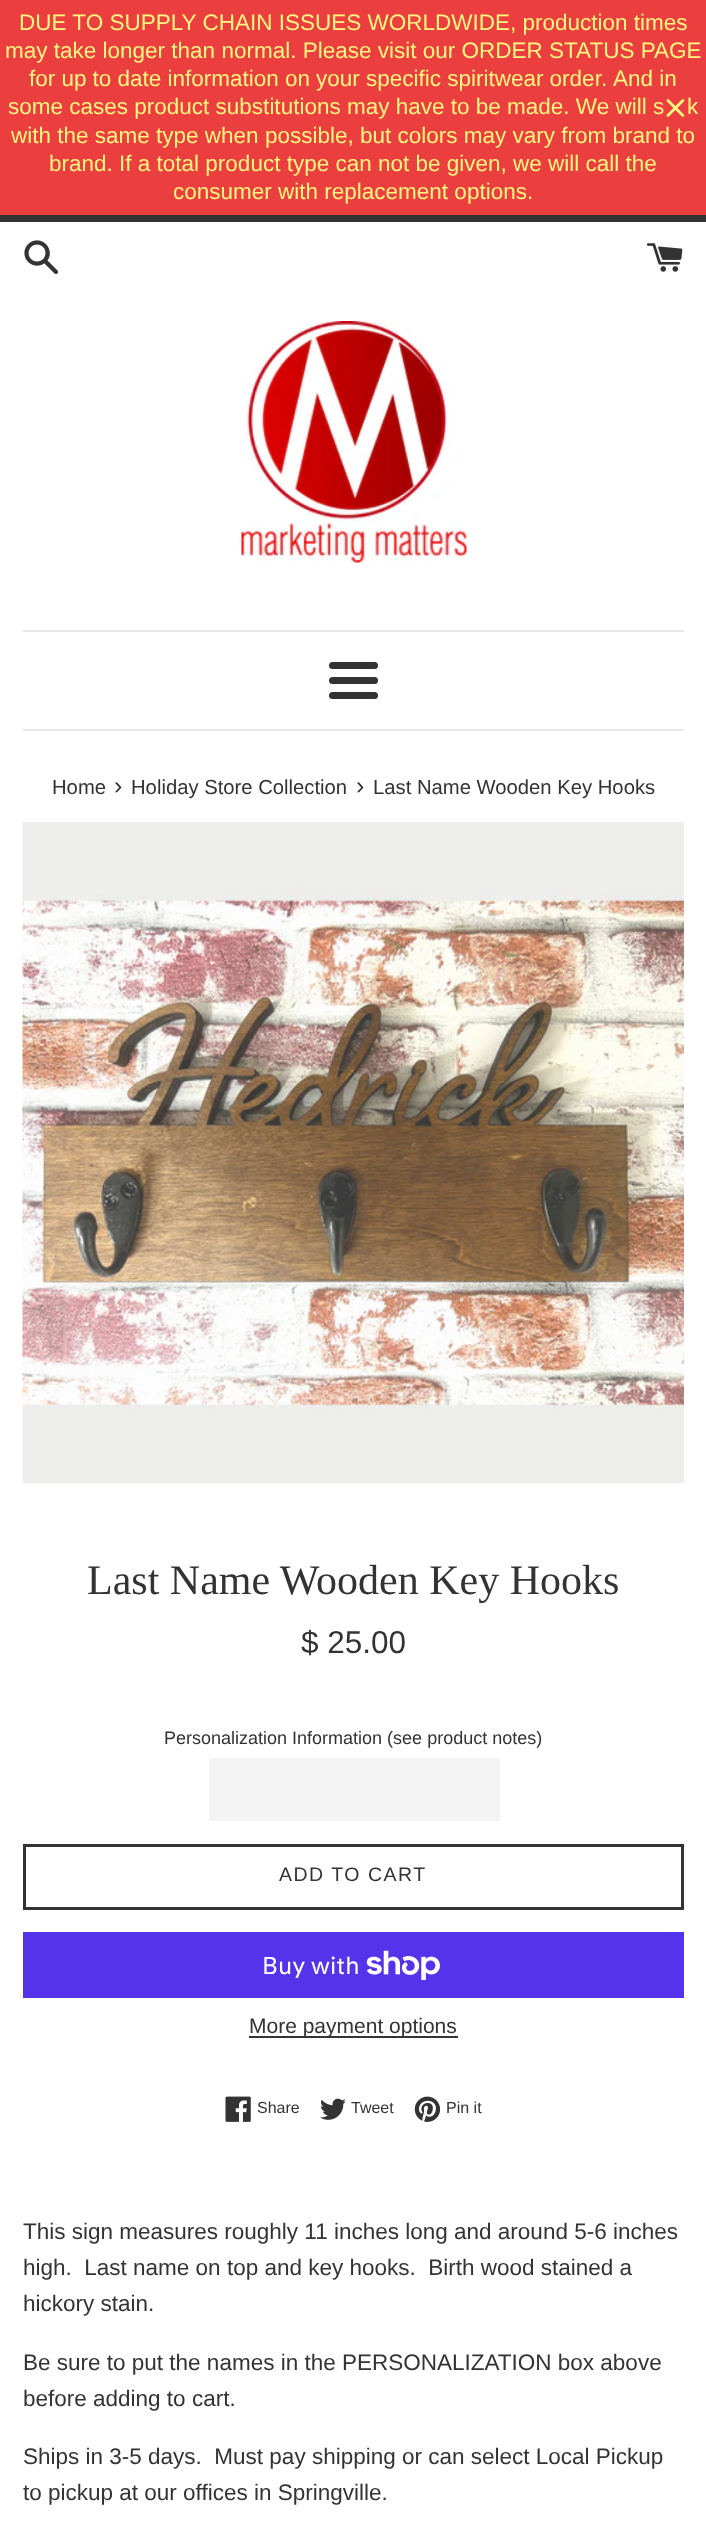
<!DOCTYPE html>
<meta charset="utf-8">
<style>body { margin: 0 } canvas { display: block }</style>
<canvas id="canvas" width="706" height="2540"></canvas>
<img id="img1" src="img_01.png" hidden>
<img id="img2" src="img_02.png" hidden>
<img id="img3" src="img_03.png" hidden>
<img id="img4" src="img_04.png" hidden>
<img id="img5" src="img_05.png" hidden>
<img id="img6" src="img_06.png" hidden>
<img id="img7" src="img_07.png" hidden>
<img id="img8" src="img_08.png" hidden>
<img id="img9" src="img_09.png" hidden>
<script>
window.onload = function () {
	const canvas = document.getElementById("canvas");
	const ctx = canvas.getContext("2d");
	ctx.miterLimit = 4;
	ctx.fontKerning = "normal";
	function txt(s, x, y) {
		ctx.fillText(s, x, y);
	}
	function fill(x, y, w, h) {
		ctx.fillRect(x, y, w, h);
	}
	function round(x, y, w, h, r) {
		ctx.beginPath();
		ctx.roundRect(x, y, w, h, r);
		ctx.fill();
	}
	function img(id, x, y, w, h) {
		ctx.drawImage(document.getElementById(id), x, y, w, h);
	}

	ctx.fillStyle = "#FFFFFF";
	fill(0, 0, 706, 2540);
	ctx.fillStyle = "#EB3E3E";
	fill(0, 0, 706, 215);
	img("img1", 666, 99, 19, 18);
	ctx.fillStyle = "#333333";
	fill(0, 215, 706, 7);
	img("img2", 24, 240, 34, 34);
	img("img3", 647, 243, 36, 29);
	img("img4", 241, 321, 226, 242);
	ctx.fillStyle = "#E8E8E8";
	fill(23, 630, 661, 2);
	ctx.fillStyle = "#333333";
	round(329, 662, 49, 7, 3.5);
	round(329, 677, 49, 7, 3.5);
	round(329, 692, 49, 7, 3.5);
	ctx.fillStyle = "#E8E8E8";
	fill(23, 729, 661, 2);
	img("img5", 22, 822, 662, 662);
	ctx.fillStyle = "#F4F4F4";
	fill(209, 1758, 291, 63);
	ctx.strokeStyle = "#333333";
	ctx.lineWidth = 3;
	ctx.strokeRect(24.5, 1845.5, 658, 63);
	ctx.fillStyle = "#5433EB";
	fill(23, 1932, 661, 66);
	img("img6", 366, 1950, 74, 30);
	ctx.fillStyle = "#333333";
	fill(249, 2036, 209, 2);
	img("img7", 225, 2096, 26, 26);
	img("img8", 320, 2098, 26, 22);
	img("img9", 414, 2096, 27, 26);
	ctx.font = "22.5px Liberation Sans";
	ctx.fillStyle = "#FFF681";
	txt("DUE TO SUPPLY CHAIN ISSUES WORLDWIDE, production times", 19, 30);
	txt("may take longer than normal. Please visit our ORDER STATUS PAGE", 5, 58);
	ctx.wordSpacing = "-0.1px";
	txt("for up to date information on your specific spiritwear order.", 29, 86);
	ctx.wordSpacing = "0px";
	txt("And in", 613, 86);
	txt("some cases product substitutions may have to be made. We will s", 8, 114);
	txt("k", 687, 114);
	txt("with the same type when possible, but colors may vary from brand to", 11, 143);
	txt("brand. If a total product type can not be given, we will call the", 49, 171);
	txt("consumer with replacement options.", 173, 199);
	ctx.font = "20.25px Liberation Sans";
	ctx.fillStyle = "#333333";
	txt("Home", 52, 794);
	ctx.font = "25px Liberation Sans";
	txt("›", 114, 794);
	ctx.font = "20.25px Liberation Sans";
	txt("Holiday Store Collection", 131, 794);
	ctx.font = "25px Liberation Sans";
	txt("›", 356, 794);
	ctx.font = "20.25px Liberation Sans";
	txt("Last Name Wooden Key Hooks", 373, 794);
	ctx.font = "42px Liberation Serif";
	txt("Last Name Wooden Key Hooks", 87, 1594);
	ctx.font = "31.5px Liberation Sans";
	txt("$ 25.00", 301, 1653);
	ctx.font = "18px Liberation Sans";
	txt("Personalization Information (see product notes)", 164, 1744);
	ctx.letterSpacing = "1.5px";
	ctx.font = "19.5px Liberation Sans";
	txt("ADD TO CART", 279, 1881);
	ctx.letterSpacing = "0px";
	ctx.font = "24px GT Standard";
	ctx.fillStyle = "#FFFFFF";
	txt("Buy with", 262, 1974);
	ctx.font = "21px Liberation Sans";
	ctx.fillStyle = "#333333";
	txt("More payment options", 249, 2033);
	ctx.font = "16px Liberation Sans";
	txt("Share", 257, 2113);
	txt("Tweet", 351, 2113);
	txt("Pin it", 446, 2113);
	ctx.font = "22.5px Liberation Sans";
	txt("This sign measures roughly 11 inches long and around 5-6 inches", 23, 2239);
	txt("high.  Last name on top and key hooks.  Birth wood stained a", 23, 2275);
	txt("hickory stain.", 23, 2311);
	txt("Be sure to put the names in the PERSONALIZATION box above", 23, 2370);
	txt("before adding to cart.", 23, 2406);
	txt("Ships in 3-5 days.  Must pay shipping or can select Local Pickup", 23, 2464);
	txt("to pickup at our offices in Springville.", 23, 2500);
};
</script>
